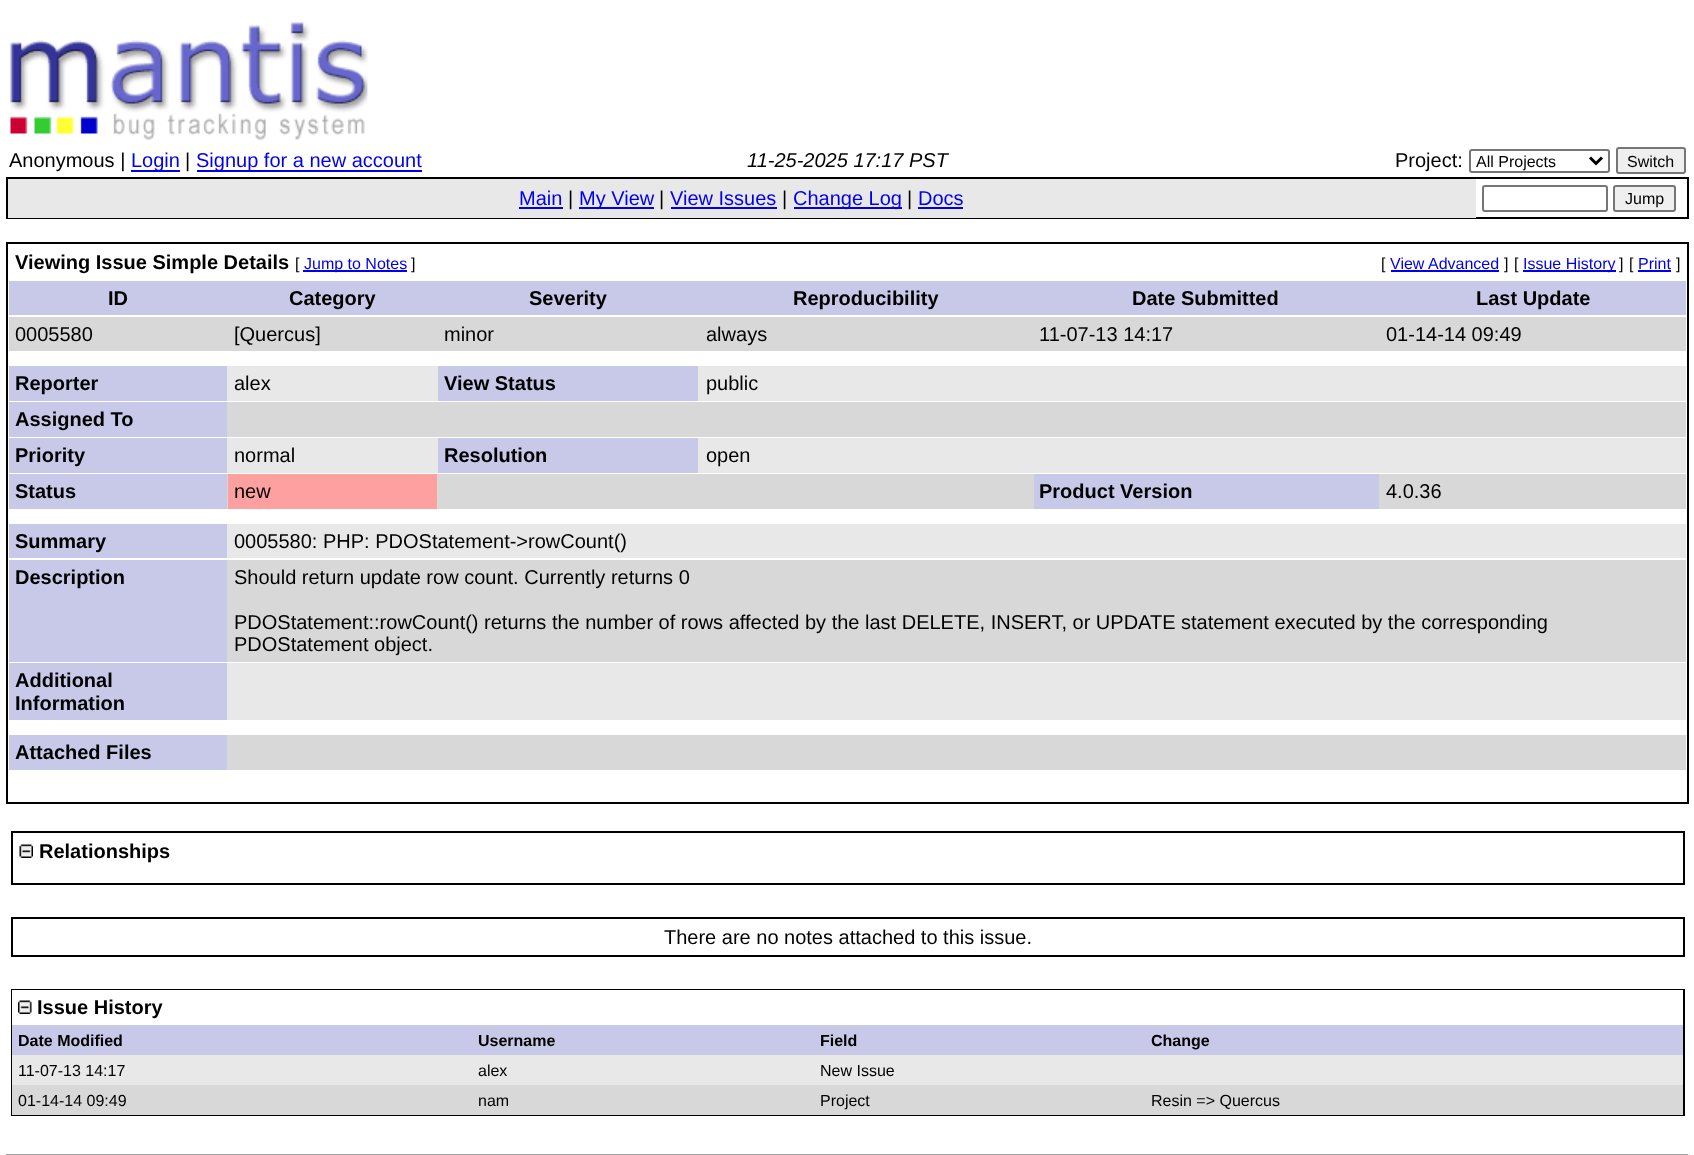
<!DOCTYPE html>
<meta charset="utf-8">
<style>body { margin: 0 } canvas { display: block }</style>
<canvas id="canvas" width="1694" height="1155"></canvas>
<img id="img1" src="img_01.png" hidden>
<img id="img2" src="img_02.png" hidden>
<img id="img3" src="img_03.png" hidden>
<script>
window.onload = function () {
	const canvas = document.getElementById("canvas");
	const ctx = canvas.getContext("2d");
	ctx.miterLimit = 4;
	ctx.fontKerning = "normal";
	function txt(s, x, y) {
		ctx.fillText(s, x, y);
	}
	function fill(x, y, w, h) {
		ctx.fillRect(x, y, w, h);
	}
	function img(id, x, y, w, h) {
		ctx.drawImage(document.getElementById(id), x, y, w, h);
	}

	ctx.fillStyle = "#FFFFFF";
	fill(0, 0, 1694, 1155);
	img("img1", 10, 22, 358, 118);
	ctx.fillStyle = "#0000EE";
	fill(131, 170, 49, 2);
	fill(197, 170, 225, 2);
	ctx.beginPath();
	ctx.roundRect(1470, 150, 139, 22, 2);
	ctx.strokeStyle = "#767676";
	ctx.lineWidth = 2;
	ctx.stroke();
	ctx.beginPath();
	ctx.moveTo(1590, 157.5);
	ctx.lineTo(1596, 163.5);
	ctx.lineTo(1602, 157.5);
	ctx.strokeStyle = "#000000";
	ctx.lineWidth = 3;
	ctx.stroke();
	ctx.fillStyle = "#EFEFEF";
	ctx.beginPath();
	ctx.roundRect(1617, 148, 68, 25, 2);
	ctx.fill();
	ctx.strokeStyle = "#767676";
	ctx.lineWidth = 2;
	ctx.stroke();
	ctx.strokeStyle = "#000000";
	ctx.strokeRect(7, 178, 1681, 40);
	ctx.fillStyle = "#E8E8E8";
	fill(8, 179, 1468, 39);
	ctx.fillStyle = "#0000EE";
	fill(519, 207, 44, 2);
	fill(579, 207, 75, 2);
	fill(671, 207, 106, 2);
	fill(794, 207, 108, 2);
	fill(918, 207, 45, 2);
	ctx.beginPath();
	ctx.roundRect(1483, 186, 124, 25, 2);
	ctx.strokeStyle = "#767676";
	ctx.stroke();
	ctx.fillStyle = "#EFEFEF";
	ctx.beginPath();
	ctx.roundRect(1614, 186, 61, 25, 2);
	ctx.fill();
	ctx.stroke();
	ctx.strokeStyle = "#000000";
	ctx.strokeRect(7, 243, 1681, 560);
	ctx.fillStyle = "#0000EE";
	fill(303, 270, 104, 2);
	fill(1391, 270, 108, 2);
	fill(1523, 270, 93, 2);
	fill(1638, 270, 33, 2);
	ctx.fillStyle = "#C8C8E8";
	fill(9, 281, 1677, 34);
	ctx.fillStyle = "#D8D8D8";
	fill(9, 317, 1677, 34);
	ctx.fillStyle = "#E8E8E8";
	fill(227, 366, 1459, 35);
	ctx.fillStyle = "#C8C8E8";
	fill(9, 366, 218, 35);
	fill(438, 366, 260, 35);
	ctx.fillStyle = "#D8D8D8";
	fill(227, 402, 1459, 35);
	ctx.fillStyle = "#C8C8E8";
	fill(9, 402, 218, 35);
	ctx.fillStyle = "#E8E8E8";
	fill(227, 438, 1459, 35);
	ctx.fillStyle = "#C8C8E8";
	fill(9, 438, 218, 35);
	fill(438, 438, 260, 35);
	ctx.fillStyle = "#D8D8D8";
	fill(227, 474, 1459, 35);
	ctx.fillStyle = "#C8C8E8";
	fill(9, 474, 218, 35);
	ctx.fillStyle = "#FFA0A0";
	fill(228, 474, 209, 35);
	ctx.fillStyle = "#C8C8E8";
	fill(1034, 474, 345, 35);
	ctx.fillStyle = "#E8E8E8";
	fill(227, 524, 1459, 34);
	ctx.fillStyle = "#C8C8E8";
	fill(9, 524, 218, 34);
	ctx.fillStyle = "#D8D8D8";
	fill(227, 560, 1459, 102);
	ctx.fillStyle = "#C8C8E8";
	fill(9, 560, 218, 102);
	ctx.fillStyle = "#E8E8E8";
	fill(227, 663, 1459, 57);
	ctx.fillStyle = "#C8C8E8";
	fill(9, 663, 218, 57);
	ctx.fillStyle = "#D8D8D8";
	fill(227, 735, 1459, 35);
	ctx.fillStyle = "#C8C8E8";
	fill(9, 735, 218, 35);
	ctx.strokeRect(12, 832, 1672, 52);
	img("img2", 19, 844, 14, 14);
	ctx.strokeRect(12, 918, 1672, 38);
	ctx.strokeRect(12, 990, 1672, 125);
	ctx.fillStyle = "#FFFFFF";
	fill(12, 990, 1671, 35);
	img("img3", 18, 1000, 14, 14);
	ctx.fillStyle = "#C8C8E8";
	fill(12, 1025, 1671, 30);
	ctx.fillStyle = "#E8E8E8";
	fill(12, 1055, 1671, 30);
	ctx.fillStyle = "#D8D8D8";
	fill(12, 1085, 1671, 30);
	ctx.fillStyle = "#9F9F9F";
	fill(6, 1154, 1683, 1);
	ctx.fillStyle = "#EEEEEE";
	fill(1688, 1154, 2, 1);
	ctx.font = "20px Liberation Sans";
	ctx.fillStyle = "#000000";
	txt("Anonymous |", 9, 167);
	ctx.fillStyle = "#0000EE";
	txt("Login", 131, 167);
	ctx.fillStyle = "#000000";
	txt("|", 185, 167);
	ctx.fillStyle = "#0000EE";
	txt("Signup for a new account", 196, 167);
	ctx.font = "italic 20px Liberation Sans";
	ctx.fillStyle = "#000000";
	txt("11-25-2025 17:17 PST", 747, 167);
	ctx.font = "20px Liberation Sans";
	txt("Project:", 1395, 167);
	ctx.font = "16px Liberation Sans";
	txt("All Projects", 1476, 167);
	txt("Switch", 1627, 167);
	ctx.font = "20px Liberation Sans";
	ctx.fillStyle = "#0000EE";
	txt("Main", 519, 205);
	ctx.fillStyle = "#000000";
	txt("|", 568, 205);
	ctx.fillStyle = "#0000EE";
	txt("My View", 579, 205);
	ctx.fillStyle = "#000000";
	txt("|", 659, 205);
	ctx.fillStyle = "#0000EE";
	txt("View Issues", 670, 205);
	ctx.fillStyle = "#000000";
	txt("|", 782, 205);
	ctx.fillStyle = "#0000EE";
	txt("Change Log", 793, 205);
	ctx.fillStyle = "#000000";
	txt("|", 907, 205);
	ctx.fillStyle = "#0000EE";
	txt("Docs", 918, 205);
	ctx.font = "16px Liberation Sans";
	ctx.fillStyle = "#000000";
	txt("Jump", 1625, 204);
	ctx.font = "bold 20px Liberation Sans";
	txt("Viewing Issue Simple Details", 15, 269);
	ctx.font = "16px Liberation Sans";
	txt("[", 295, 269);
	ctx.fillStyle = "#0000EE";
	txt("Jump to Notes", 304, 269);
	ctx.fillStyle = "#000000";
	txt("]", 411, 269);
	txt("[", 1381, 269);
	ctx.fillStyle = "#0000EE";
	txt("View Advanced", 1390, 269);
	ctx.fillStyle = "#000000";
	txt("]", 1504, 269);
	txt("[", 1514, 269);
	ctx.fillStyle = "#0000EE";
	txt("Issue History", 1523, 269);
	ctx.fillStyle = "#000000";
	txt("]", 1619, 269);
	txt("[", 1629, 269);
	ctx.fillStyle = "#0000EE";
	txt("Print", 1638, 269);
	ctx.fillStyle = "#000000";
	txt("]", 1676, 269);
	ctx.font = "bold 20px Liberation Sans";
	txt("ID", 108, 305);
	txt("Category", 289, 305);
	txt("Severity", 529, 305);
	txt("Reproducibility", 793, 305);
	txt("Date Submitted", 1132, 305);
	txt("Last Update", 1476, 305);
	ctx.font = "20px Liberation Sans";
	txt("0005580", 15, 341);
	txt("[Quercus]", 234, 341);
	txt("minor", 444, 341);
	txt("always", 706, 341);
	txt("11-07-13 14:17", 1039, 341);
	txt("01-14-14 09:49", 1386, 341);
	ctx.font = "bold 20px Liberation Sans";
	txt("Reporter", 15, 390);
	ctx.font = "20px Liberation Sans";
	txt("alex", 234, 390);
	ctx.font = "bold 20px Liberation Sans";
	txt("View Status", 444, 390);
	ctx.font = "20px Liberation Sans";
	txt("public", 706, 390);
	ctx.font = "bold 20px Liberation Sans";
	txt("Assigned To", 15, 426);
	txt("Priority", 15, 462);
	ctx.font = "20px Liberation Sans";
	txt("normal", 234, 462);
	ctx.font = "bold 20px Liberation Sans";
	txt("Resolution", 444, 462);
	ctx.font = "20px Liberation Sans";
	txt("open", 706, 462);
	ctx.font = "bold 20px Liberation Sans";
	txt("Status", 15, 498);
	ctx.font = "20px Liberation Sans";
	txt("new", 234, 498);
	ctx.font = "bold 20px Liberation Sans";
	txt("Product Version", 1039, 498);
	ctx.font = "20px Liberation Sans";
	txt("4.0.36", 1386, 498);
	ctx.font = "bold 20px Liberation Sans";
	txt("Summary", 15, 548);
	ctx.font = "20px Liberation Sans";
	txt("0005580: PHP: PDOStatement->rowCount()", 234, 548);
	ctx.font = "bold 20px Liberation Sans";
	txt("Description", 15, 584);
	ctx.font = "20px Liberation Sans";
	txt("Should return update row count. Currently returns 0", 234, 584);
	txt("PDOStatement::rowCount() returns the number of rows affected by the last DELETE, INSERT, or UPDATE statement executed by the corresponding", 234, 629);
	txt("PDOStatement object.", 234, 651);
	ctx.font = "bold 20px Liberation Sans";
	txt("Additional", 15, 687);
	txt("Information", 15, 710);
	txt("Attached Files", 15, 759);
	txt("Relationships", 39, 858);
	ctx.font = "20px Liberation Sans";
	txt("There are no notes attached to this issue.", 664, 944);
	ctx.font = "bold 20px Liberation Sans";
	txt("Issue History", 37, 1014);
	ctx.font = "bold 16px Liberation Sans";
	txt("Date Modified", 18, 1046);
	txt("Username", 478, 1046);
	txt("Field", 820, 1046);
	txt("Change", 1151, 1046);
	ctx.font = "16px Liberation Sans";
	txt("11-07-13 14:17", 18, 1076);
	txt("alex", 478, 1076);
	txt("New Issue", 820, 1076);
	txt("01-14-14 09:49", 18, 1106);
	txt("nam", 478, 1106);
	txt("Project", 820, 1106);
	txt("Resin => Quercus", 1151, 1106);
};
</script>
